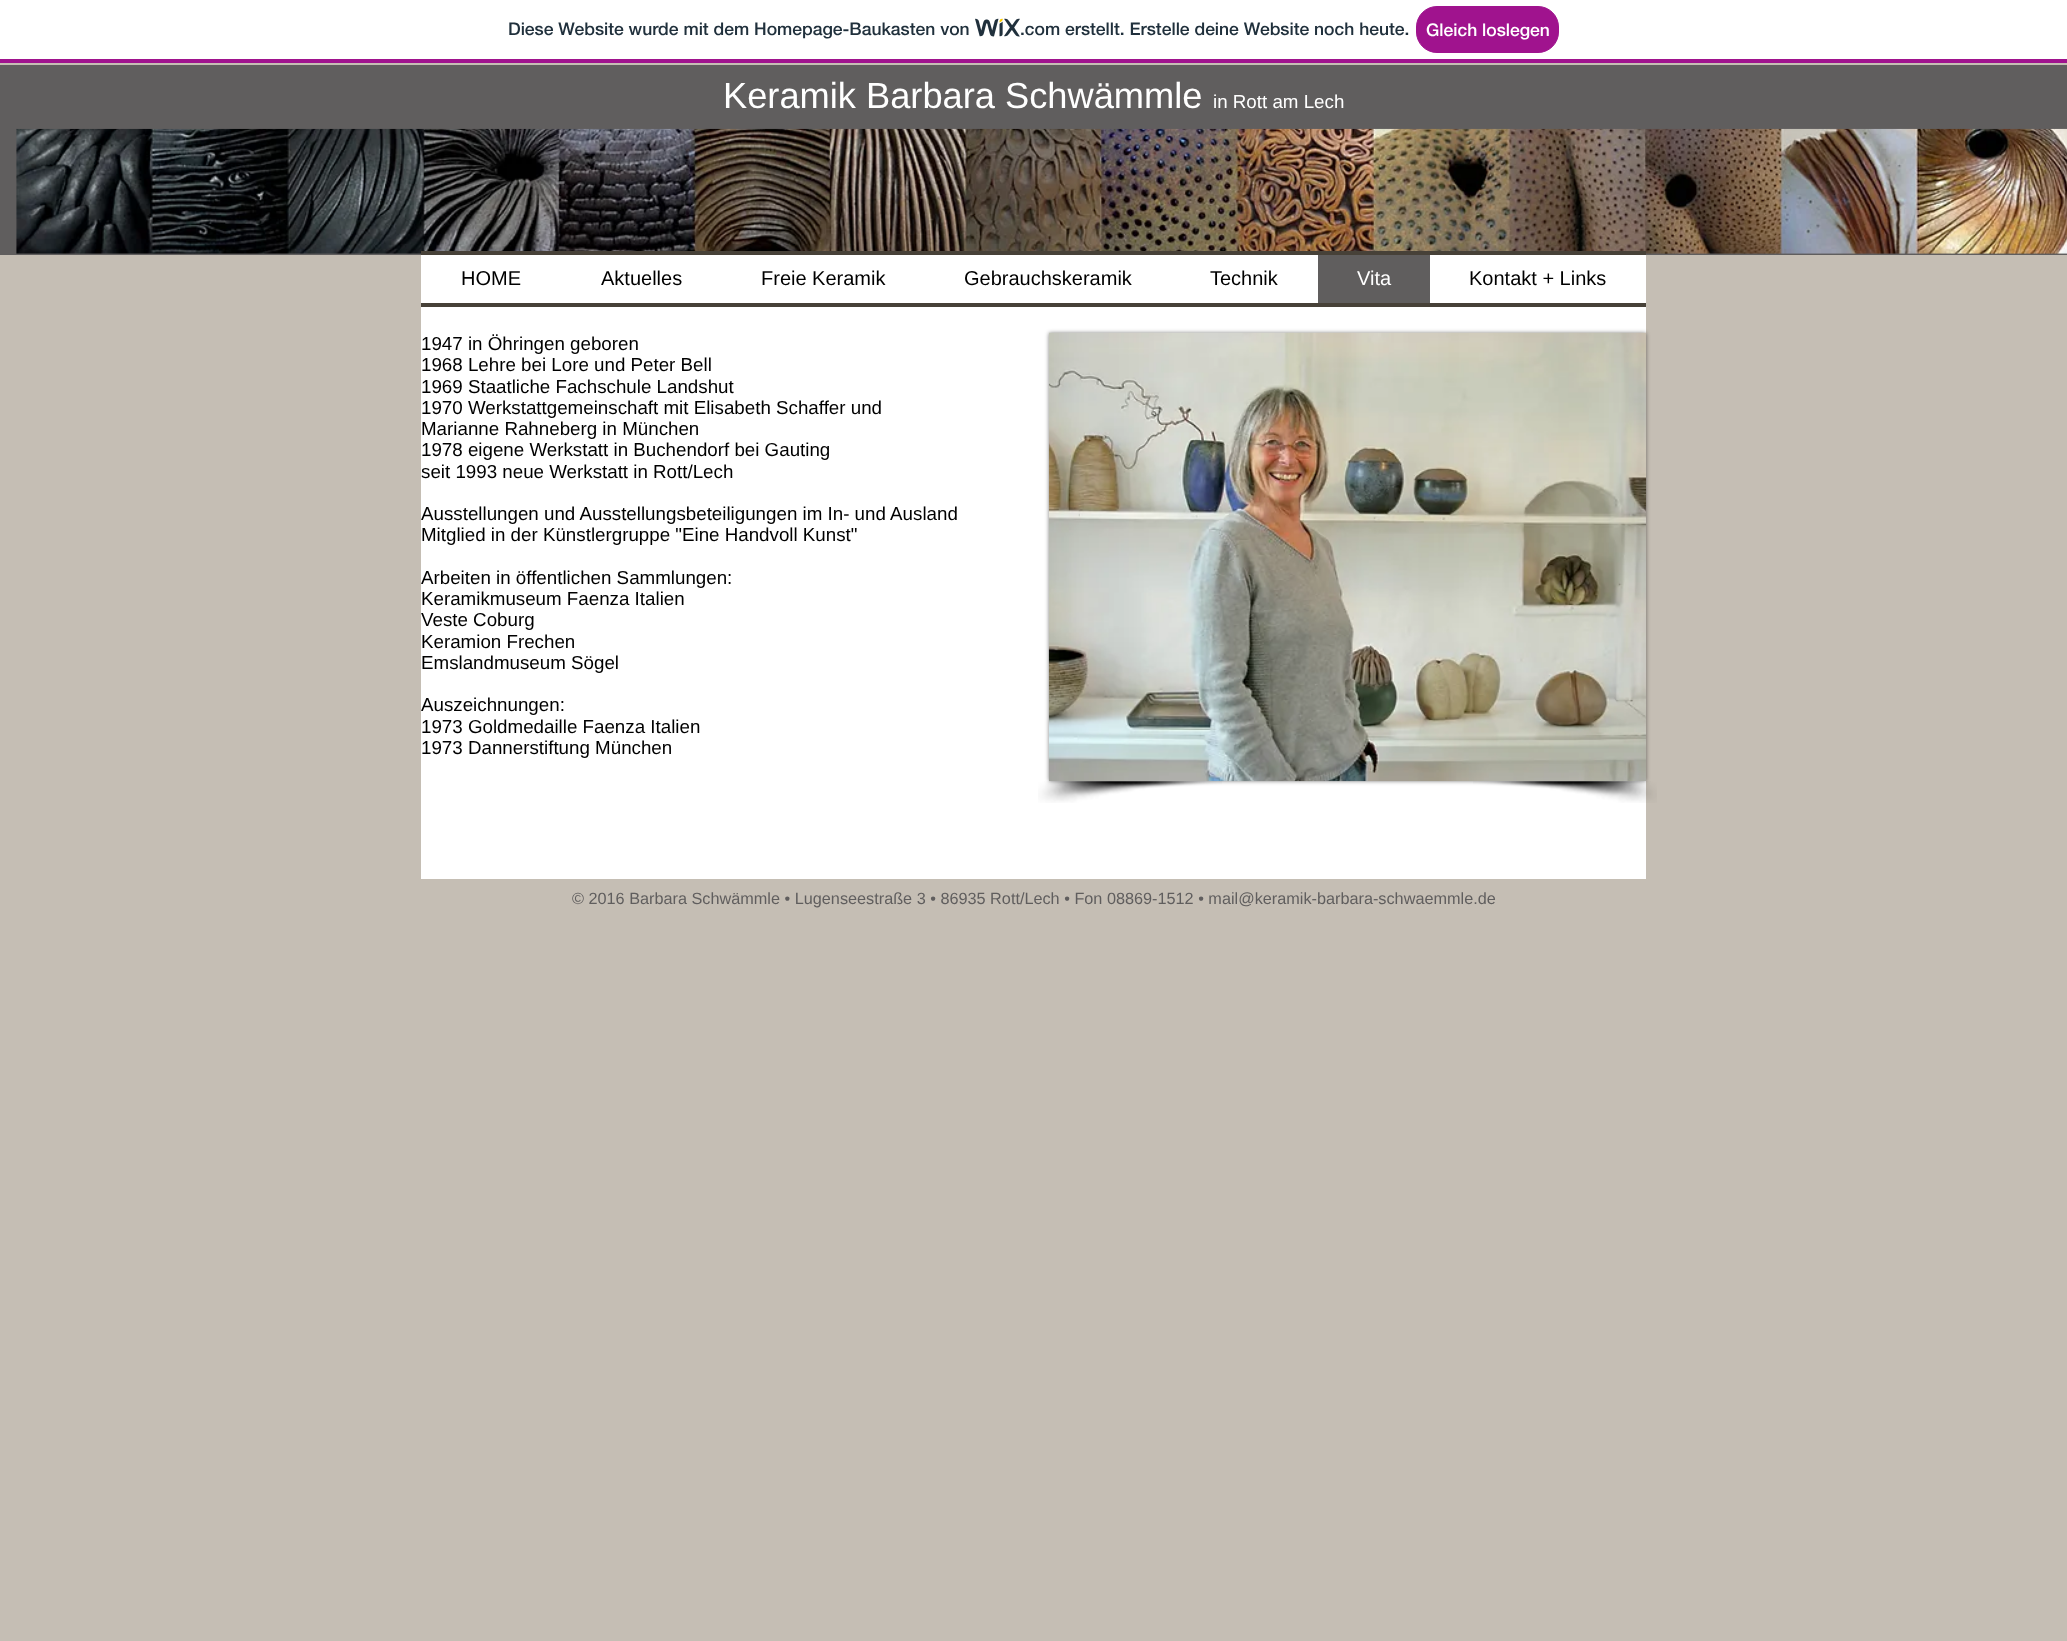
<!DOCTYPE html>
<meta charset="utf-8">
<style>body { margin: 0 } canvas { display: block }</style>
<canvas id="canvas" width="2067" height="1641"></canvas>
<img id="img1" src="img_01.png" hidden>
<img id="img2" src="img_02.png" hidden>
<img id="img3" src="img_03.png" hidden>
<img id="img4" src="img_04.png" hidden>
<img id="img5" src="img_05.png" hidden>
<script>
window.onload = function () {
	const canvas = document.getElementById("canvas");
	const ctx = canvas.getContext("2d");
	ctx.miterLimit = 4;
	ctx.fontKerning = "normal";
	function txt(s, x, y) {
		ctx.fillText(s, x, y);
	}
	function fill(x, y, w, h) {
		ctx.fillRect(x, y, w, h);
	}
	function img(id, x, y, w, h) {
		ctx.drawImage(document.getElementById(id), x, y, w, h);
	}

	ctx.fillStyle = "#FFFFFF";
	fill(0, 0, 2067, 1641);
	ctx.fillStyle = "#A0138E";
	fill(0, 59, 2067, 4);
	img("img1", 975, 18, 45, 19);
	ctx.beginPath();
	ctx.roundRect(1416.5, 6.5, 142, 46, 20.5);
	ctx.fill();
	ctx.strokeStyle = "#A0138E";
	ctx.stroke();
	ctx.fillStyle = "#C5BEB4";
	fill(0, 63, 2067, 1578);
	ctx.fillStyle = "#605E5E";
	fill(0, 65, 2067, 190);
	img("img2", 16, 128, 2051, 126);
	ctx.fillStyle = "#474138";
	fill(421, 251, 1225, 4);
	ctx.fillStyle = "#FFFFFF";
	fill(421, 255, 1225, 624);
	ctx.fillStyle = "#474138";
	fill(421, 303, 1225, 4);
	ctx.fillStyle = "#605E5E";
	fill(1318, 255, 112, 48);
	ctx.fillStyle = "rgba(0, 0, 0, 0.5)";
	ctx.filter = "blur(2px)";
	ctx.beginPath();
	ctx.rect(1049, 333, 597, 448);
	ctx.fill();
	ctx.filter = "none";
	img("img3", 1048, 332, 599, 450);
	img("img4", 1038, 781, 184, 22);
	img("img5", 1473, 781, 184, 22);
	ctx.font = "500 17.5px 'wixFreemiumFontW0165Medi'";
	ctx.fillStyle = "#20303C";
	txt("Diese Website wurde mit dem Homepage-Baukasten von", 508, 35);
	txt(".com erstellt. Erstelle deine Website noch heute.", 1020, 35);
	ctx.fillStyle = "#FFFFFF";
	txt("Gleich loslegen", 1426, 36);
	ctx.font = "36.25px Liberation Sans";
	txt("Keramik Barbara Schwämmle", 723, 108);
	ctx.font = "18.75px Liberation Sans";
	txt("in Rott am Lech", 1213, 108);
	ctx.font = "20px Liberation Sans";
	ctx.fillStyle = "#000000";
	txt("HOME", 461, 285);
	txt("Aktuelles", 601, 285);
	txt("Freie Keramik", 761, 285);
	txt("Gebrauchskeramik", 964, 285);
	txt("Technik", 1210, 285);
	ctx.fillStyle = "#FFFFFF";
	txt("Vita", 1357, 285);
	ctx.fillStyle = "#000000";
	txt("Kontakt + Links", 1469, 285);
	ctx.font = "18.75px Liberation Sans";
	txt("1947 in Öhringen geboren", 421, 350);
	txt("1968 Lehre bei Lore und Peter Bell", 421, 371);
	txt("1969 Staatliche Fachschule Landshut", 421, 393);
	txt("1970 Werkstattgemeinschaft mit Elisabeth Schaffer und", 421, 414);
	txt("Marianne Rahneberg in München", 421, 435);
	txt("1978 eigene Werkstatt in Buchendorf bei Gauting", 421, 456);
	txt("seit 1993 neue Werkstatt in Rott/Lech", 421, 478);
	txt("Ausstellungen und Ausstellungsbeteiligungen im In- und Ausland", 421, 520);
	txt("Mitglied in der Künstlergruppe \"Eine Handvoll Kunst\"", 421, 541);
	txt("Arbeiten in öffentlichen Sammlungen:", 421, 584);
	txt("Keramikmuseum Faenza Italien", 421, 605);
	txt("Veste Coburg", 421, 626);
	txt("Keramion Frechen", 421, 648);
	txt("Emslandmuseum Sögel", 421, 669);
	txt("Auszeichnungen:", 421, 711);
	txt("1973 Goldmedaille Faenza Italien", 421, 733);
	txt("1973 Dannerstiftung München", 421, 754);
	ctx.font = "16.25px Liberation Sans";
	ctx.fillStyle = "#605E5E";
	txt("© 2016 Barbara Schwämmle • Lugenseestraße 3 • 86935 Rott/Lech • Fon 08869-1512 • mail@keramik-barbara-schwaemmle.de", 572, 904);
};
</script>
